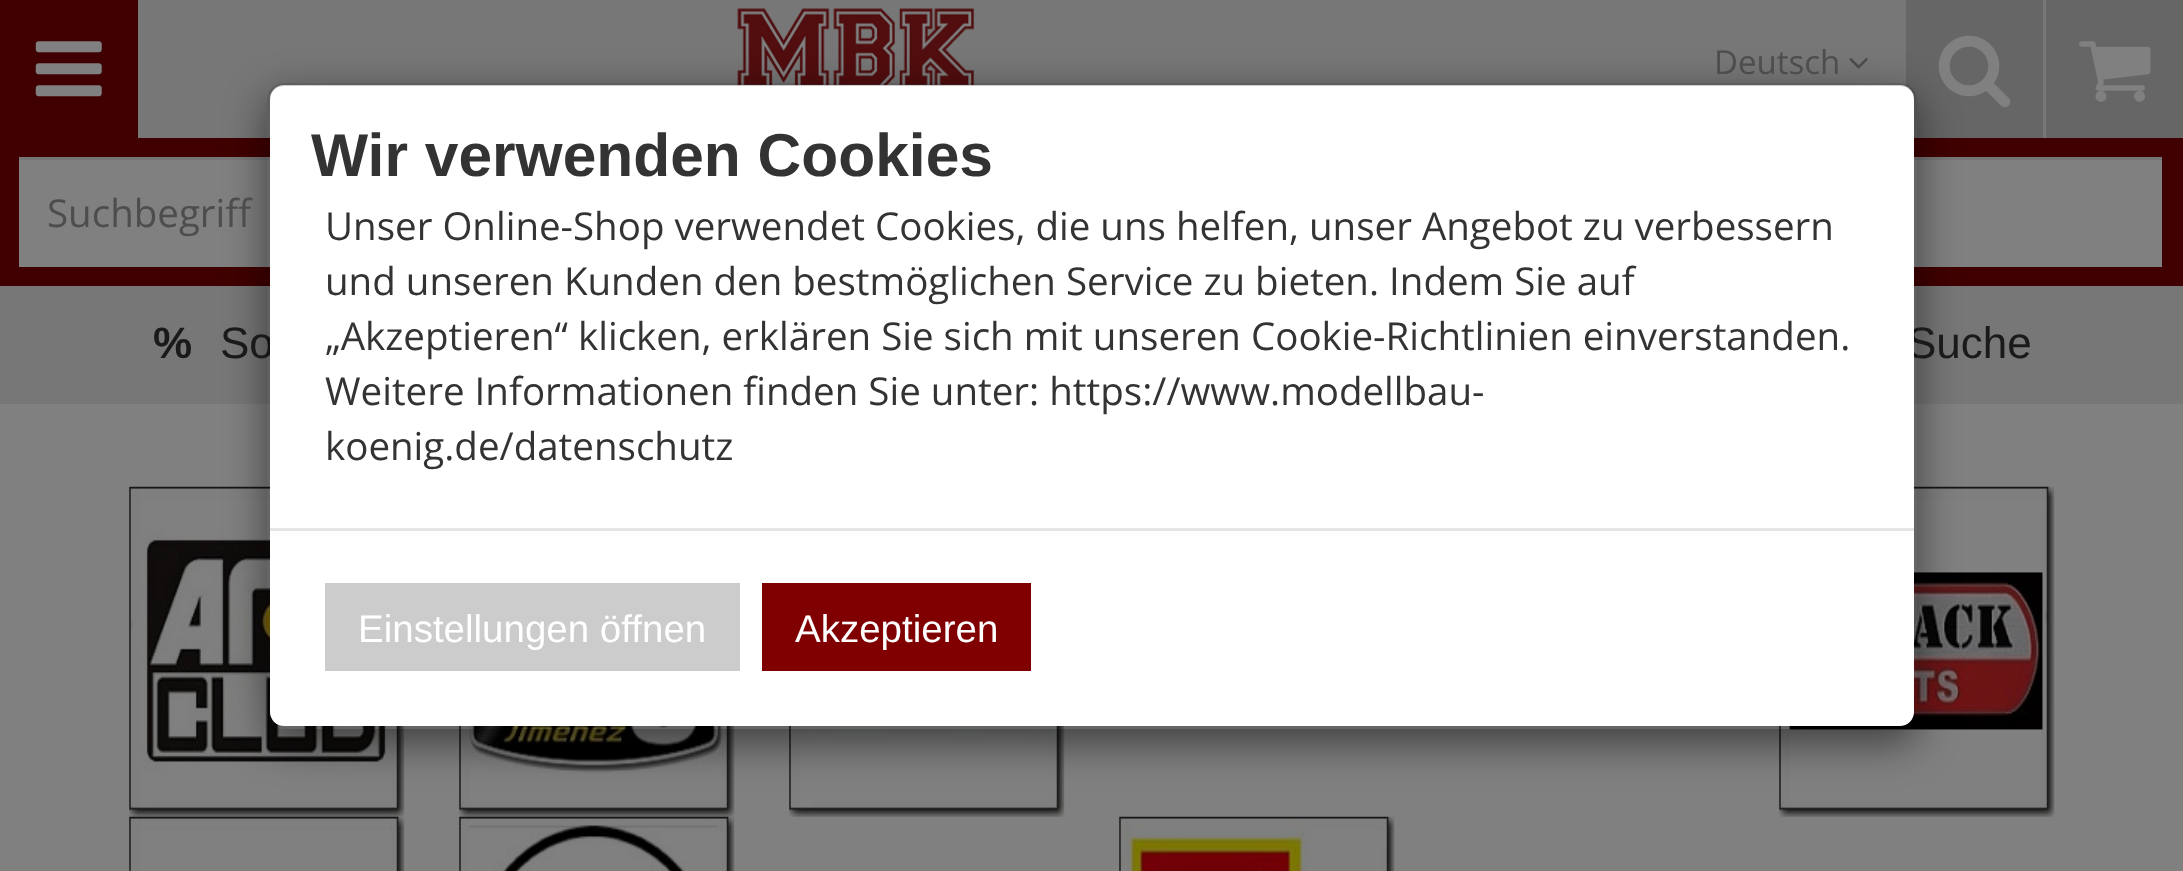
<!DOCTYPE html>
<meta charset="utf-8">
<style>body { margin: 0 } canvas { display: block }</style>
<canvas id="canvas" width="2183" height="871"></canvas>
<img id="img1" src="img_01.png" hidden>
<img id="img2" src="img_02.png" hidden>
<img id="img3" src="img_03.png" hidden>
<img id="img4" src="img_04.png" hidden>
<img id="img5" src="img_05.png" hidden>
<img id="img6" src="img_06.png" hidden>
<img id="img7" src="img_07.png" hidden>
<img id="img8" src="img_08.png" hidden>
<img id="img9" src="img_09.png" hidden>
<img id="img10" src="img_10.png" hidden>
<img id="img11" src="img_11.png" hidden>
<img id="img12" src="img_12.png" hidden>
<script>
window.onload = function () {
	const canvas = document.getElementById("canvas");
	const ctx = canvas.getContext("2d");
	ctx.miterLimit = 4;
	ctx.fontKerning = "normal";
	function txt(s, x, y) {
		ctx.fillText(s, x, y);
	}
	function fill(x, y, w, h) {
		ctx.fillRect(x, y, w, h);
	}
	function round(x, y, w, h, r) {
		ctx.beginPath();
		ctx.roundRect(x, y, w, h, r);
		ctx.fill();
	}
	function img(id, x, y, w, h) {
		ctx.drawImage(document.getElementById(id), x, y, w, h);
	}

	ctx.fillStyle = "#808080";
	fill(0, 0, 2183, 871);
	ctx.fillStyle = "#777777";
	fill(138, 0, 1908, 138);
	ctx.fillStyle = "#400001";
	fill(0, 0, 138, 138);
	img("img1", 35, 41, 67, 56);
	img("img2", 737, 8, 238, 77);
	img("img3", 1849, 58, 19, 11);
	ctx.fillStyle = "#666666";
	fill(1906, 0, 137, 138);
	img("img4", 1938, 35, 73, 73);
	fill(2046, 0, 137, 138);
	img("img5", 2079, 41, 72, 61);
	ctx.fillStyle = "#400001";
	fill(0, 138, 2183, 148);
	ctx.fillStyle = "#808080";
	fill(19, 160, 2143, 107);
	ctx.fillStyle = "#767676";
	fill(19, 157, 2143, 3);
	ctx.fillStyle = "#777777";
	fill(0, 286, 2183, 118);
	img("img6", 129, 486, 276, 331);
	img("img7", 459, 726, 276, 91);
	img("img8", 789, 726, 276, 91);
	img("img9", 1779, 486, 276, 331);
	img("img10", 129, 816, 276, 55);
	img("img11", 459, 816, 276, 55);
	img("img12", 1119, 816, 276, 55);
	ctx.save();
	ctx.beginPath();
	ctx.moveTo(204, 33);
	ctx.lineTo(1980, 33);
	ctx.lineTo(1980, 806);
	ctx.lineTo(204, 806);
	ctx.closePath();
	ctx.moveTo(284, 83);
	ctx.lineTo(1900, 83);
	ctx.bezierCurveTo(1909.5, 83, 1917, 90.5, 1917, 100);
	ctx.lineTo(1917, 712);
	ctx.bezierCurveTo(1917, 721.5, 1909.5, 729, 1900, 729);
	ctx.lineTo(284, 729);
	ctx.bezierCurveTo(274.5, 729, 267, 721.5, 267, 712);
	ctx.lineTo(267, 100);
	ctx.bezierCurveTo(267, 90.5, 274.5, 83, 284, 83);
	ctx.closePath();
	ctx.clip("evenodd");
	ctx.fillStyle = "rgba(0, 0, 0, 0.5)";
	ctx.filter = "blur(20.5px)";
	ctx.beginPath();
	ctx.roundRect(267, 96, 1650, 647, 17);
	ctx.fill();
	ctx.filter = "none";
	ctx.restore();
	ctx.font = "33px Open Sans";
	ctx.fillStyle = "#4D4D4D";
	txt("Deutsch", 1714, 74);
	ctx.font = "38.5px Open Sans";
	txt("Suchbegriff", 47, 227);
	ctx.font = "bold 44px Liberation Sans";
	ctx.fillStyle = "#1A1A1A";
	txt("%", 153, 358);
	ctx.font = "44px Liberation Sans";
	txt("So", 220, 358);
	txt("Suche", 1907, 358);
	ctx.fillStyle = "#FFFFFF";
	round(270, 85, 1644, 641, 14);
	ctx.beginPath();
	ctx.roundRect(268.5, 84.5, 1647, 643, 15.5);
	ctx.strokeStyle = "rgba(0, 0, 0, 0.2)";
	ctx.lineWidth = 3;
	ctx.stroke();
	ctx.font = "bold 60.5px Liberation Sans";
	ctx.fillStyle = "#333333";
	txt("Wir verwenden Cookies", 311, 176);
	ctx.font = "38.5px Open Sans";
	txt("Unser Online-Shop verwendet Cookies, die uns helfen, unser Angebot zu verbessern", 325, 240);
	txt("und unseren Kunden den bestmöglichen Service zu bieten. Indem Sie auf", 325, 295);
	txt("„Akzeptieren“ klicken, erklären Sie sich mit unseren Cookie-Richtlinien einverstanden.", 325, 350);
	txt("Weitere Informationen finden Sie unter: https://www.modellbau-", 325, 405);
	txt("koenig.de/datenschutz", 325, 460);
	ctx.fillStyle = "#E5E5E5";
	fill(270, 528, 1644, 3);
	ctx.fillStyle = "#CCCCCC";
	fill(325, 583, 415, 88);
	ctx.font = "38.5px Liberation Sans";
	ctx.fillStyle = "#FFFFFF";
	txt("Einstellungen öffnen", 358, 642);
	ctx.fillStyle = "#800001";
	fill(762, 583, 269, 88);
	ctx.fillStyle = "#FFFFFF";
	txt("Akzeptieren", 795, 642);
};
</script>
